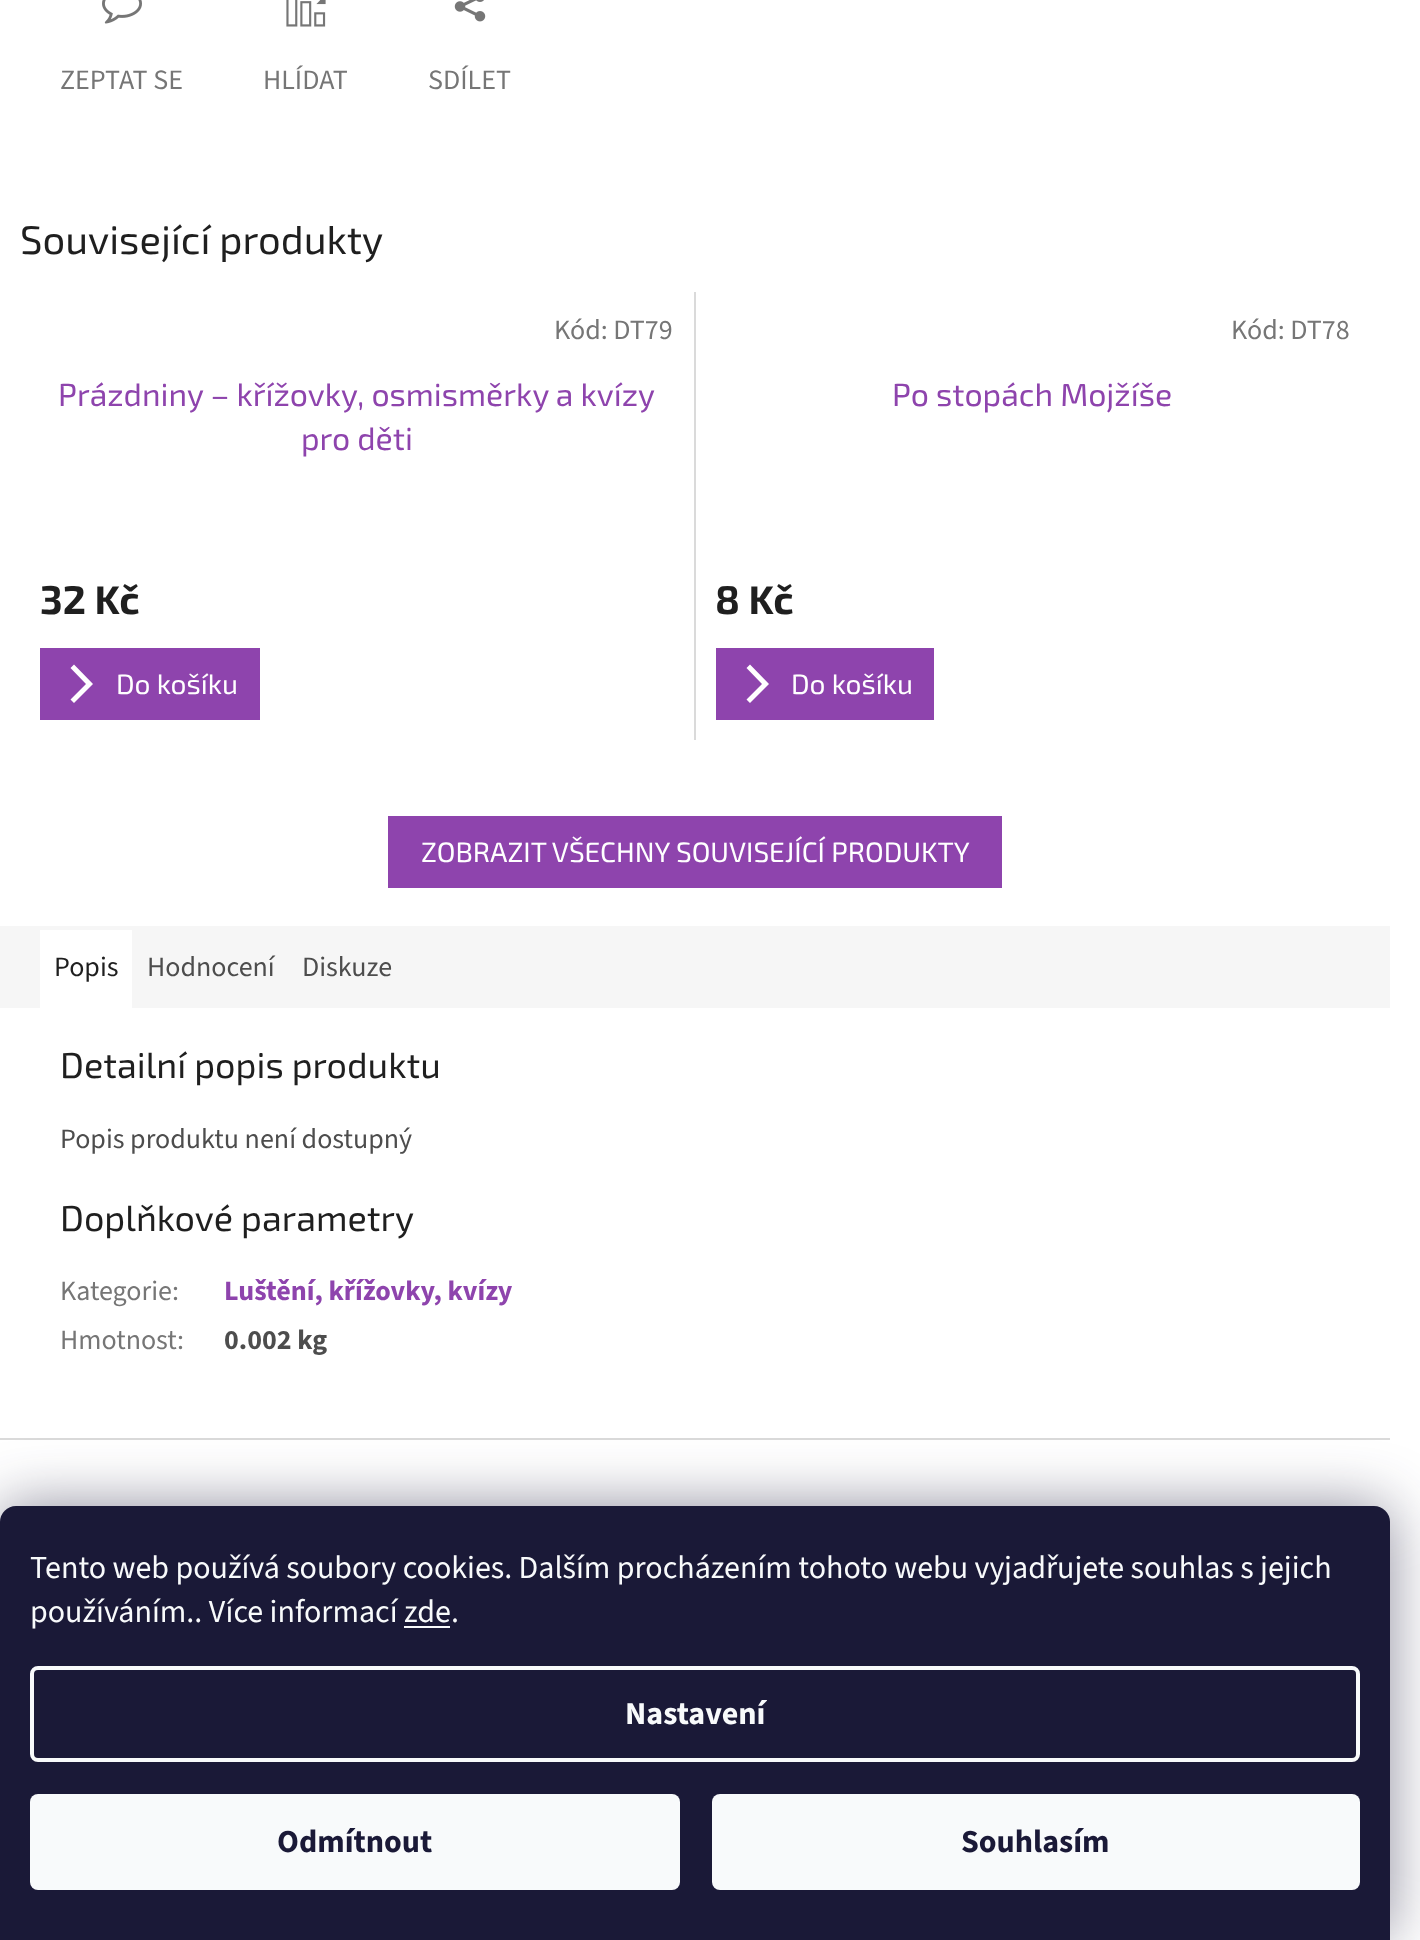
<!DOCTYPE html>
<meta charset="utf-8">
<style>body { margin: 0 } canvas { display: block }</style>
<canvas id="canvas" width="1420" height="1940"></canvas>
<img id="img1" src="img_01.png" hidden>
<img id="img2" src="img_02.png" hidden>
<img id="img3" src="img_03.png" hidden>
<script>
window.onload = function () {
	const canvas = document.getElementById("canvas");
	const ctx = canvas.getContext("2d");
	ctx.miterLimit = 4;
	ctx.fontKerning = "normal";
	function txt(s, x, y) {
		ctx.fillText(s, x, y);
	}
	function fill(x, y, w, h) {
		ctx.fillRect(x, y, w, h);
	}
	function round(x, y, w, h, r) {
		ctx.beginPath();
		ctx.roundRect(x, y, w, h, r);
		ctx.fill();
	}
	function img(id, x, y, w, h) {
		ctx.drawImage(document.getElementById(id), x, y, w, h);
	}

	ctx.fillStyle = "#FFFFFF";
	fill(0, 0, 1420, 1940);
	img("img1", 102, 0, 40, 24);
	img("img2", 286, 0, 40, 27);
	img("img3", 454, 0, 32, 22);
	ctx.fillStyle = "#DADADA";
	fill(694, 292, 2, 448);
	ctx.fillStyle = "#8E44AD";
	fill(40, 648, 220, 72);
	ctx.fillStyle = "#FFFFFF";
	ctx.beginPath();
	ctx.moveTo(74, 703);
	ctx.lineTo(70.5, 699.5);
	ctx.lineTo(86, 684);
	ctx.lineTo(70.5, 668);
	ctx.lineTo(74, 664.5);
	ctx.lineTo(93, 684);
	ctx.closePath();
	ctx.fill();
	ctx.fillStyle = "#8E44AD";
	fill(716, 648, 218, 72);
	ctx.fillStyle = "#FFFFFF";
	ctx.beginPath();
	ctx.moveTo(750, 703);
	ctx.lineTo(746.5, 699.5);
	ctx.lineTo(762, 684);
	ctx.lineTo(746.5, 668);
	ctx.lineTo(750, 664.5);
	ctx.lineTo(769, 684);
	ctx.closePath();
	ctx.fill();
	ctx.fillStyle = "#8E44AD";
	fill(388, 816, 614, 72);
	ctx.fillStyle = "#F6F6F6";
	fill(0, 926, 1390, 82);
	ctx.fillStyle = "#FFFFFF";
	fill(40, 930, 92, 78);
	ctx.fillStyle = "#DADADA";
	fill(0, 1438, 1390, 2);
	ctx.fillStyle = "rgba(27, 25, 57, 0.5)";
	ctx.filter = "blur(30px)";
	ctx.beginPath();
	ctx.roundRect(0, 1506, 1390, 434, 16);
	ctx.fill();
	ctx.filter = "none";
	ctx.fillStyle = "#1A1937";
	ctx.beginPath();
	ctx.roundRect(0, 1506, 1390, 434, [16, 16, 0, 0]);
	ctx.fill();
	ctx.fillStyle = "#F8FAFB";
	fill(404, 1626, 46, 2);
	ctx.beginPath();
	ctx.roundRect(32, 1668, 1326, 92, 6);
	ctx.strokeStyle = "#F8FAFB";
	ctx.lineWidth = 4;
	ctx.stroke();
	round(30, 1794, 650, 96, 8);
	round(712, 1794, 648, 96, 8);
	ctx.font = "28px 'Source Sans 3'";
	ctx.fillStyle = "#767676";
	txt("ZEPTAT SE", 60, 89);
	txt("HLÍDAT", 263, 89);
	txt("SDÍLET", 428, 89);
	ctx.font = "40px 'Exo 2'";
	ctx.fillStyle = "#1F1F1F";
	txt("Související produkty", 20, 254);
	ctx.font = "28px 'Source Sans 3'";
	ctx.fillStyle = "#767676";
	txt("Kód: DT79", 554, 339);
	ctx.font = "32px 'Exo 2'";
	ctx.fillStyle = "#8E44AD";
	txt("Prázdniny – křížovky, osmisměrky a kvízy", 58, 406);
	txt("pro děti", 301, 450);
	ctx.font = "bold 40px 'Exo 2'";
	ctx.fillStyle = "#1F1F1F";
	txt("32 Kč", 40, 614);
	ctx.font = "28px 'Exo 2'";
	ctx.fillStyle = "#FFFFFF";
	txt("Do košíku", 116, 694);
	ctx.font = "28px 'Source Sans 3'";
	ctx.fillStyle = "#767676";
	txt("Kód: DT78", 1231, 339);
	ctx.font = "32px 'Exo 2'";
	ctx.fillStyle = "#8E44AD";
	txt("Po stopách Mojžíše", 892, 406);
	ctx.font = "bold 40px 'Exo 2'";
	ctx.fillStyle = "#1F1F1F";
	txt("8 Kč", 715, 614);
	ctx.font = "28px 'Exo 2'";
	ctx.fillStyle = "#FFFFFF";
	txt("Do košíku", 791, 694);
	txt("ZOBRAZIT VŠECHNY SOUVISEJÍCÍ PRODUKTY", 421, 862);
	ctx.font = "28px 'Source Sans 3'";
	ctx.fillStyle = "#1F1F1F";
	txt("Popis", 54, 976);
	ctx.fillStyle = "#4D4D4D";
	txt("Hodnocení", 147, 976);
	txt("Diskuze", 302, 976);
	ctx.font = "36px 'Exo 2'";
	ctx.fillStyle = "#1F1F1F";
	txt("Detailní popis produktu", 60, 1078);
	ctx.font = "28px 'Source Sans 3'";
	ctx.fillStyle = "#4D4D4D";
	txt("Popis produktu není dostupný", 60, 1148);
	ctx.font = "36px 'Exo 2'";
	ctx.fillStyle = "#1F1F1F";
	txt("Doplňkové parametry", 60, 1231);
	ctx.font = "28px 'Source Sans 3'";
	ctx.fillStyle = "#767676";
	txt("Kategorie:", 60, 1300);
	ctx.font = "bold 28px 'Source Sans 3'";
	ctx.fillStyle = "#8E44AD";
	txt("Luštění, křížovky, kvízy", 224, 1300);
	ctx.font = "28px 'Source Sans 3'";
	ctx.fillStyle = "#767676";
	txt("Hmotnost", 60, 1349);
	txt(":", 177, 1349);
	ctx.font = "bold 28px 'Source Sans 3'";
	ctx.fillStyle = "#4D4D4D";
	txt("0.002 kg", 224, 1349);
	ctx.font = "32px 'Source Sans 3'";
	ctx.fillStyle = "#F8FAFB";
	txt("Tento web používá soubory cookies. Dalším procházením tohoto webu vyjadřujete souhlas s jejich", 30, 1578);
	txt("používáním.. Více informací zde.", 30, 1622);
	ctx.font = "bold 32px 'Source Sans 3'";
	txt("Nastavení", 625, 1724);
	ctx.fillStyle = "#1A1937";
	txt("Odmítnout", 277, 1852);
	txt("Souhlasím", 961, 1852);
};
</script>
